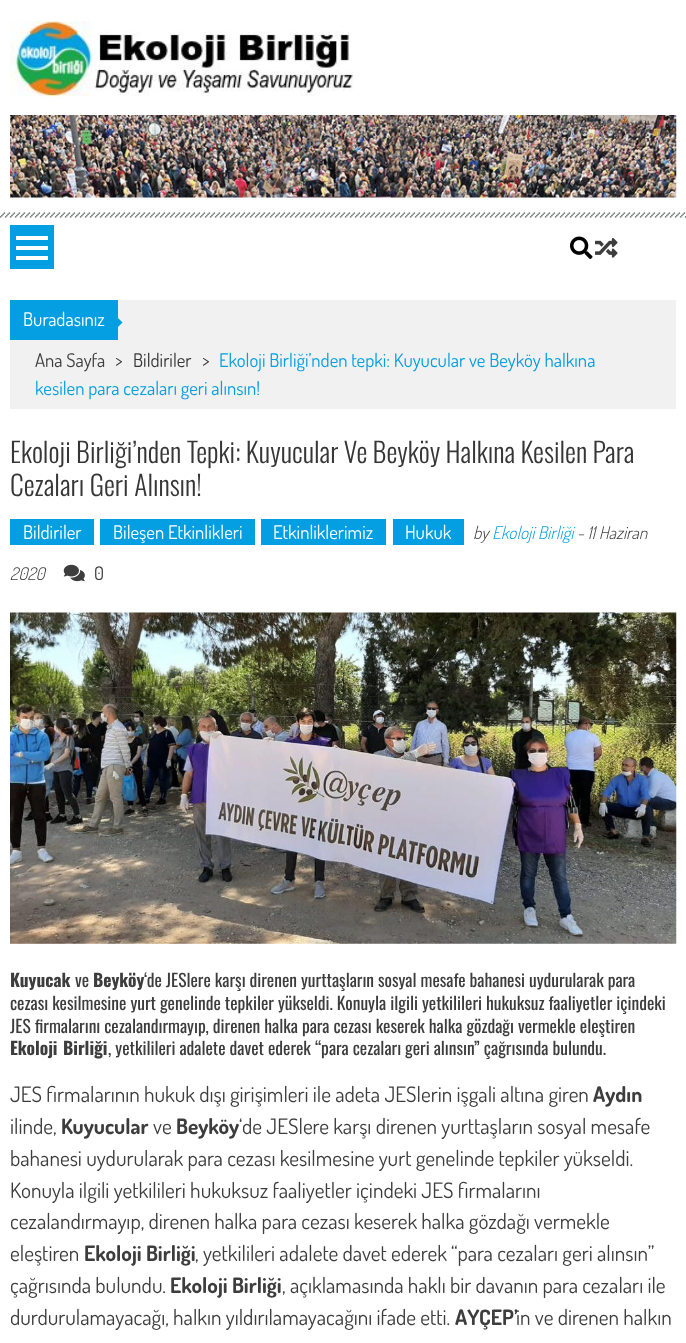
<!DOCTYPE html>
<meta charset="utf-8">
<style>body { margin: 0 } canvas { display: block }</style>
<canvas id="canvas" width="686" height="1343"></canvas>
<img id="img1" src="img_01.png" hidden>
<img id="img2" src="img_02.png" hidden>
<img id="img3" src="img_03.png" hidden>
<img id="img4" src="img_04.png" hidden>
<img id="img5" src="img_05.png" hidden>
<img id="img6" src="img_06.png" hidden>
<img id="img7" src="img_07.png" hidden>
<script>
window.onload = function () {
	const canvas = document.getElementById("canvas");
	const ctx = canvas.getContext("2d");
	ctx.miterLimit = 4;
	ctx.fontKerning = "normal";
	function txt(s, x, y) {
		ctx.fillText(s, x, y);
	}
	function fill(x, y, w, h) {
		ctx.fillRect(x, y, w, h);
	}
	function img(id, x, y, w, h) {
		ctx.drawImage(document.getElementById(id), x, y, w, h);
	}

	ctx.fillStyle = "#FFFFFF";
	fill(0, 0, 686, 1343);
	img("img1", 0, 212, 686, 6);
	img("img2", 10, 21, 344, 76);
	img("img3", 10, 115, 667, 83);
	ctx.fillStyle = "#049FE2";
	fill(10, 225, 44, 44);
	ctx.fillStyle = "#FFFFFF";
	fill(16, 236, 32, 4);
	fill(16, 246, 32, 4);
	fill(16, 256, 32, 4);
	img("img4", 570, 236, 23, 23);
	img("img5", 595, 238, 23, 20);
	ctx.fillStyle = "#F1F1F1";
	fill(10, 300, 666, 109);
	ctx.fillStyle = "#049FE2";
	fill(10, 300, 108, 40);
	ctx.beginPath();
	ctx.moveTo(116, 329);
	ctx.lineTo(116, 316);
	ctx.lineTo(122.5, 322.5);
	ctx.closePath();
	ctx.fill();
	fill(10, 519, 84, 26);
	fill(100, 519, 155, 26);
	fill(261, 519, 125, 26);
	fill(393, 519, 71, 26);
	img("img6", 63, 564, 22, 18);
	img("img7", 10, 612, 667, 332);
	ctx.font = "18.75px Dosis";
	ctx.fillStyle = "#FFFFFF";
	txt("Buradasınız", 23, 326);
	ctx.fillStyle = "#3D3D3D";
	txt("Ana Sayfa", 35, 367);
	txt(">", 115, 367);
	ctx.fillStyle = "#363636";
	txt("Bildiriler", 133, 367);
	ctx.fillStyle = "#3D3D3D";
	txt(">", 202, 367);
	ctx.fillStyle = "#049FE2";
	txt("Ekoloji Birliği’nden tepki: Kuyucular ve Beyköy halkına", 219, 367);
	txt("kesilen para cezaları geri alınsın!", 35, 395);
	ctx.wordSpacing = "-0.25px";
	ctx.font = "300 27.5px Oswald";
	ctx.fillStyle = "#363636";
	txt("Ekoloji Birliği’nden Tepki: Kuyucular Ve Beyköy Halkına Kesilen Para", 10, 463);
	ctx.wordSpacing = "0px";
	txt("Cezaları Geri Alınsın!", 10, 496);
	ctx.font = "18.75px Dosis";
	ctx.fillStyle = "#FFFFFF";
	txt("Bildiriler", 23, 539);
	txt("Bileşen Etkinlikleri", 113, 539);
	txt("Etkinliklerimiz", 273, 539);
	txt("Hukuk", 405, 539);
	ctx.font = "italic 300 17.5px Dosis";
	ctx.fillStyle = "#3D3D3D";
	txt("by", 473, 539);
	ctx.fillStyle = "#049FE2";
	txt("Ekoloji Birliği", 492, 539);
	ctx.fillStyle = "#3D3D3D";
	txt("- 11 Haziran", 577, 539);
	txt("2020", 10, 580);
	ctx.font = "18.75px Dosis";
	txt("0", 94, 580);
	ctx.font = "bold 17.5px Oswald";
	txt("Kuyucak", 10, 987);
	ctx.font = "17.5px Oswald";
	txt("ve", 75, 987);
	ctx.font = "bold 17.5px Oswald";
	txt("Beyköy", 93, 987);
	ctx.font = "17.5px Oswald";
	txt("‘de JESlere karşı direnen yurttaşların sosyal mesafe bahanesi uydurularak para", 144, 987);
	txt("cezası kesilmesine yurt genelinde tepkiler yükseldi. Konuyla ilgili yetkilileri hukuksuz faaliyetler içindeki", 10, 1010);
	txt("JES firmalarını cezalandırmayıp, direnen halka para cezası keserek halka gözdağı vermekle eleştiren", 10, 1033);
	ctx.wordSpacing = "1px";
	ctx.font = "bold 17.5px Oswald";
	txt("Ekoloji Birliği", 10, 1055);
	ctx.wordSpacing = "0px";
	ctx.font = "17.5px Oswald";
	txt(", yetkilileri adalete davet ederek “para cezaları geri alınsın” çağrısında bulundu.", 108, 1055);
	ctx.font = "21.25px Dosis";
	txt("JES firmalarının hukuk dışı girişimleri ile adeta JESlerin işgali altına giren", 10, 1102);
	ctx.font = "bold 21.25px Dosis";
	txt("Aydın", 593, 1102);
	ctx.font = "21.25px Dosis";
	txt("ilinde,", 10, 1134);
	ctx.font = "bold 21.25px Dosis";
	txt("Kuyucular", 61, 1134);
	ctx.font = "21.25px Dosis";
	txt("ve", 153, 1134);
	ctx.font = "bold 21.25px Dosis";
	txt("Beyköy", 176, 1134);
	ctx.font = "21.25px Dosis";
	txt("‘de JESlere karşı direnen yurttaşların sosyal mesafe", 239, 1134);
	txt("bahanesi uydurularak para cezası kesilmesine yurt genelinde tepkiler yükseldi.", 10, 1166);
	txt("Konuyla ilgili yetkilileri hukuksuz faaliyetler içindeki JES firmalarını", 10, 1198);
	txt("cezalandırmayıp, direnen halka para cezası keserek halka gözdağı vermekle", 10, 1229);
	txt("eleştiren", 10, 1261);
	ctx.font = "bold 21.25px Dosis";
	txt("Ekoloji Birliği", 84, 1261);
	ctx.font = "21.25px Dosis";
	txt(", yetkilileri adalete davet ederek “para cezaları geri alınsın”", 195, 1261);
	txt("çağrısında bulundu.", 10, 1293);
	ctx.font = "bold 21.25px Dosis";
	txt("Ekoloji Birliği", 170, 1293);
	ctx.font = "21.25px Dosis";
	txt(", açıklamasında haklı bir davanın para cezaları ile", 282, 1293);
	txt("durdurulamayacağı, halkın yıldırılamayacağını ifade etti.", 10, 1325);
	ctx.font = "bold 21.25px Dosis";
	txt("AYÇEP’", 455, 1325);
	ctx.font = "21.25px Dosis";
	txt("in ve direnen halkın", 516, 1325);
};
</script>
